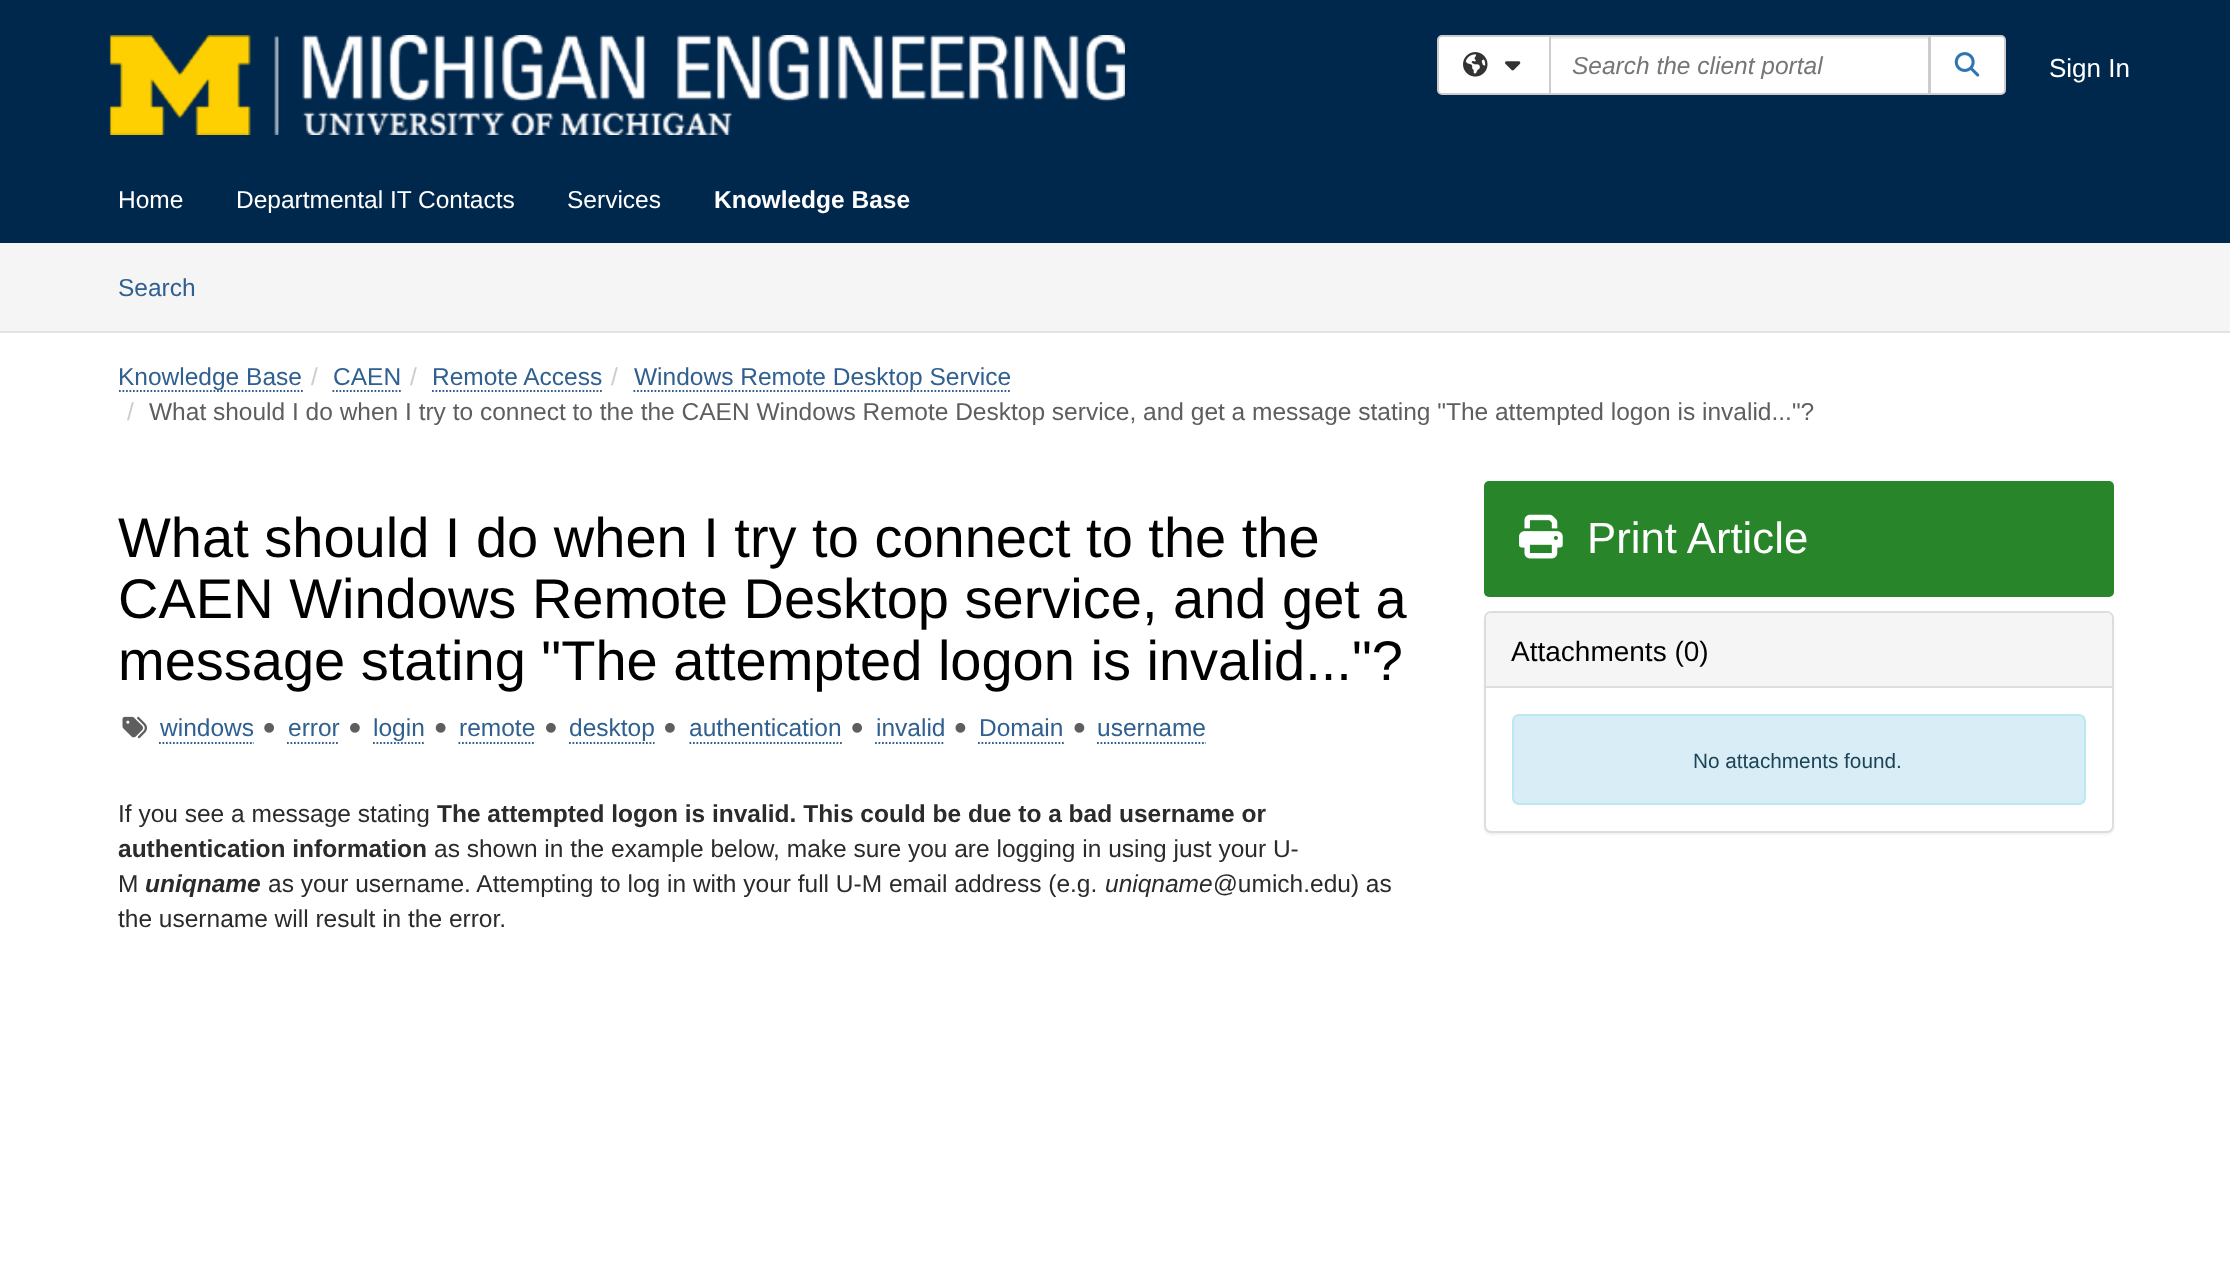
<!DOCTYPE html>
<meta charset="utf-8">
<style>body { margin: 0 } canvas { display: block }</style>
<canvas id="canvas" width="2230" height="1284"></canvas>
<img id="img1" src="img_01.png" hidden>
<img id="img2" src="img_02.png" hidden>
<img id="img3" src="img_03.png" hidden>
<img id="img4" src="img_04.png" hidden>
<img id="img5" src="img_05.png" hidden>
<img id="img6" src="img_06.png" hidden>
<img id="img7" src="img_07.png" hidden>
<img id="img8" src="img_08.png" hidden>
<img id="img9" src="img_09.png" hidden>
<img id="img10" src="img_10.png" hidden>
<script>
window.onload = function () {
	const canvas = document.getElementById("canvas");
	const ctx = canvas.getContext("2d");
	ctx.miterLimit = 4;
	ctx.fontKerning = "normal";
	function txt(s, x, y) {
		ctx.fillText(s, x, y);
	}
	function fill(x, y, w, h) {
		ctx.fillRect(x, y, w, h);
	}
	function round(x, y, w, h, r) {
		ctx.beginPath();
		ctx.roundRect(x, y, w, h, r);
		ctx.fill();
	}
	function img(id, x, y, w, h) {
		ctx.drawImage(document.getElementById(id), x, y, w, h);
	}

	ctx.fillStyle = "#FFFFFF";
	fill(0, 0, 2230, 1284);
	ctx.fillStyle = "#00274C";
	fill(0, 0, 2230, 243);
	img("img1", 109, 35, 1016, 100);
	ctx.fillStyle = "#FFFFFF";
	ctx.beginPath();
	ctx.roundRect(1438, 36, 112, 58, [4, 0, 0, 4]);
	ctx.fill();
	ctx.strokeStyle = "#CCCCCC";
	ctx.lineWidth = 2;
	ctx.stroke();
	img("img2", 1463, 52, 25, 25);
	img("img3", 1505, 61, 16, 10);
	fill(1551, 39, 377, 54);
	ctx.fillStyle = "#ECECEC";
	fill(1551, 37, 378, 2);
	ctx.strokeRect(1550, 36, 379, 58);
	ctx.fillStyle = "#FFFFFF";
	ctx.beginPath();
	ctx.roundRect(1930, 36, 75, 58, [0, 4, 4, 0]);
	ctx.fill();
	ctx.stroke();
	img("img4", 1954, 52, 26, 25);
	ctx.fillStyle = "#F5F5F5";
	fill(0, 243, 2230, 88);
	ctx.fillStyle = "#E3E3E3";
	fill(0, 331, 2230, 2);
	ctx.beginPath();
	ctx.moveTo(119, 391);
	ctx.lineTo(303, 391);
	ctx.strokeStyle = "#306090";
	ctx.lineWidth = 1.8;
	ctx.setLineDash([1.75, 1.75]);
	ctx.stroke();
	ctx.beginPath();
	ctx.moveTo(332.5, 391);
	ctx.lineTo(401, 391);
	ctx.stroke();
	ctx.beginPath();
	ctx.moveTo(432, 391);
	ctx.lineTo(602, 391);
	ctx.stroke();
	ctx.beginPath();
	ctx.moveTo(633.5, 391);
	ctx.lineTo(1011.5, 391);
	ctx.stroke();
	img("img5", 122, 716, 25, 23);
	ctx.beginPath();
	ctx.moveTo(159, 743);
	ctx.lineTo(254, 743);
	ctx.stroke();
	img("img6", 264, 722, 10, 11);
	ctx.beginPath();
	ctx.moveTo(287, 743);
	ctx.lineTo(339.5, 743);
	ctx.stroke();
	img("img7", 350, 722, 10, 11);
	ctx.beginPath();
	ctx.moveTo(373, 743);
	ctx.lineTo(425, 743);
	ctx.stroke();
	img("img8", 435, 722, 11, 11);
	ctx.beginPath();
	ctx.moveTo(458.5, 743);
	ctx.lineTo(535.5, 743);
	ctx.stroke();
	img("img7", 546, 722, 10, 11);
	ctx.beginPath();
	ctx.moveTo(569, 743);
	ctx.lineTo(654.5, 743);
	ctx.stroke();
	img("img7", 665, 722, 10, 11);
	ctx.beginPath();
	ctx.moveTo(689.5, 743);
	ctx.lineTo(842, 743);
	ctx.stroke();
	img("img6", 852, 722, 10, 11);
	ctx.beginPath();
	ctx.moveTo(875, 743);
	ctx.lineTo(945, 743);
	ctx.stroke();
	img("img9", 955, 722, 11, 11);
	ctx.beginPath();
	ctx.moveTo(978, 743);
	ctx.lineTo(1064, 743);
	ctx.stroke();
	img("img9", 1074, 722, 11, 11);
	ctx.beginPath();
	ctx.moveTo(1097, 743);
	ctx.lineTo(1206, 743);
	ctx.stroke();
	ctx.fillStyle = "#298529";
	round(1484, 481, 630, 116, 5);
	img("img10", 1519, 514, 44, 45);
	ctx.fillStyle = "rgba(0, 0, 0, 0.05)";
	ctx.filter = "blur(1px)";
	ctx.beginPath();
	ctx.roundRect(1484, 613, 630, 222, 7);
	ctx.fill();
	ctx.filter = "none";
	ctx.fillStyle = "#FFFFFF";
	ctx.beginPath();
	ctx.roundRect(1485, 612, 628, 220, 6);
	ctx.fill();
	ctx.strokeStyle = "#DDDDDD";
	ctx.lineWidth = 2;
	ctx.setLineDash([]);
	ctx.stroke();
	ctx.fillStyle = "#F5F5F5";
	ctx.beginPath();
	ctx.roundRect(1486, 613, 626, 75, [5, 5, 0, 0]);
	ctx.fill();
	ctx.fillStyle = "#DDDDDD";
	fill(1486, 686, 626, 2);
	ctx.fillStyle = "#D9EDF7";
	ctx.beginPath();
	ctx.roundRect(1513, 715, 572, 89, 6);
	ctx.fill();
	ctx.strokeStyle = "#BCE8F1";
	ctx.stroke();
	ctx.font = "italic 24.5px Liberation Sans";
	ctx.fillStyle = "#767676";
	txt("Search the client portal", 1572, 74);
	ctx.font = "26px Liberation Sans";
	ctx.fillStyle = "#FFFFFF";
	txt("Sign In", 2049, 77);
	ctx.font = "24.5px Liberation Sans";
	txt("Home", 118, 208);
	txt("Departmental IT Contacts", 236, 208);
	txt("Services", 567, 208);
	ctx.font = "bold 24.5px Liberation Sans";
	txt("Knowledge Base", 714, 208);
	ctx.font = "24.5px Liberation Sans";
	ctx.fillStyle = "#306090";
	txt("Search", 118, 296);
	txt("Knowledge Base", 118, 385);
	ctx.fillStyle = "#CCCCCC";
	txt("/", 311, 385);
	ctx.fillStyle = "#306090";
	txt("CAEN", 333, 385);
	ctx.fillStyle = "#CCCCCC";
	txt("/", 410, 385);
	ctx.fillStyle = "#306090";
	txt("Remote Access", 432, 385);
	ctx.fillStyle = "#CCCCCC";
	txt("/", 611, 385);
	ctx.fillStyle = "#306090";
	txt("Windows Remote Desktop Service", 634, 385);
	ctx.fillStyle = "#CCCCCC";
	txt("/", 127, 420);
	ctx.fillStyle = "#5E5E5E";
	txt("What should I do when I try to connect to the the CAEN Windows Remote Desktop service, and get a message stating \"The attempted logon is invalid...\"?", 149, 420);
	ctx.font = "56px Liberation Sans";
	ctx.fillStyle = "#000000";
	txt("What should I do when I try to connect to the the", 118, 557);
	txt("CAEN Windows Remote Desktop service, and get a", 118, 618);
	txt("message stating \"The attempted logon is invalid...\"?", 118, 680);
	ctx.font = "24.5px Liberation Sans";
	ctx.fillStyle = "#306090";
	txt("windows", 160, 736);
	txt("error", 288, 736);
	txt("login", 373, 736);
	txt("remote", 459, 736);
	txt("desktop", 569, 736);
	txt("authentication", 689, 736);
	txt("invalid", 876, 736);
	txt("Domain", 979, 736);
	txt("username", 1097, 736);
	ctx.fillStyle = "#2B2B2B";
	txt("If you see a message stating", 118, 822);
	ctx.font = "bold 24.5px Liberation Sans";
	txt("The attempted logon is invalid. This could be due to a bad username or", 437, 822);
	txt("authentication information", 118, 857);
	ctx.font = "24.5px Liberation Sans";
	txt("as shown in the example below, make sure you are logging in using just your U-", 434, 857);
	txt("M", 118, 892);
	ctx.font = "italic bold 24.5px Liberation Sans";
	txt("uniqname", 145, 892);
	ctx.font = "24.5px Liberation Sans";
	txt("as your username. Attempting to log in with your full U-M email address (e.g.", 268, 892);
	ctx.font = "italic 24.5px Liberation Sans";
	txt("uniqname", 1105, 892);
	ctx.font = "24.5px Liberation Sans";
	txt("@umich.edu) as", 1213, 892);
	txt("the username will result in the error.", 118, 927);
	ctx.font = "43.75px Liberation Sans";
	ctx.fillStyle = "#FFFFFF";
	txt("Print Article", 1587, 553);
	ctx.font = "28px Liberation Sans";
	ctx.fillStyle = "#000000";
	txt("Attachments (0)", 1511, 661);
	ctx.font = "20.75px Liberation Sans";
	ctx.fillStyle = "#1D4356";
	txt("No attachments found.", 1693, 768);
};
</script>
